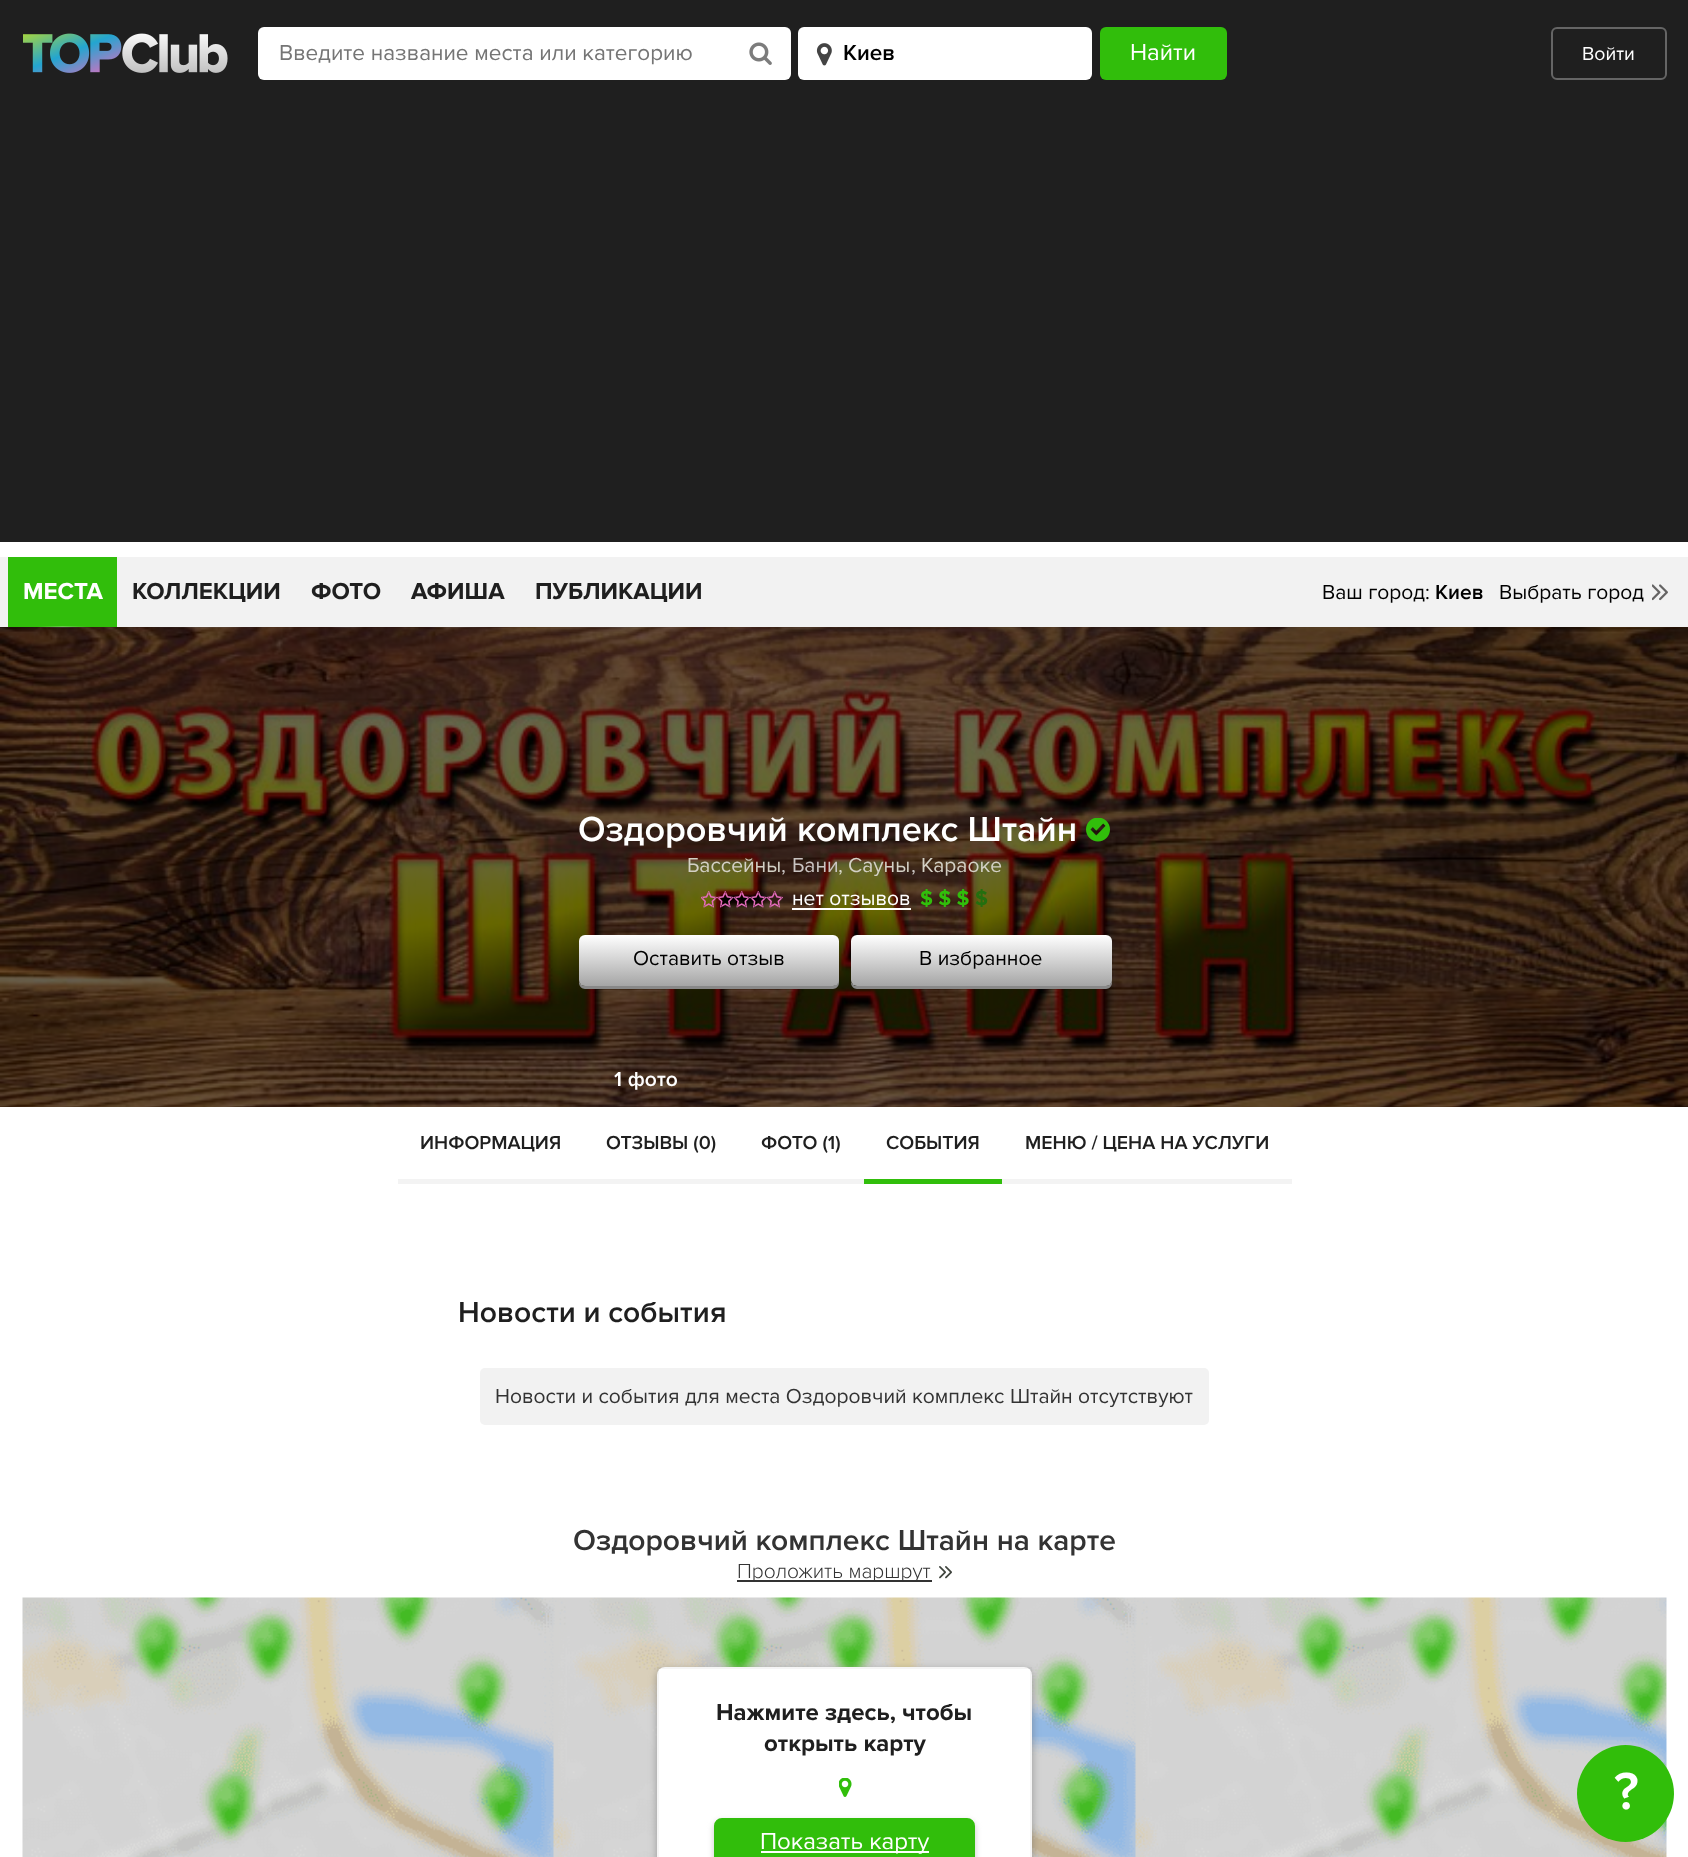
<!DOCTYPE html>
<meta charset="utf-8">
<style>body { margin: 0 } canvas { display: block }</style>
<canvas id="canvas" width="1688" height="1857"></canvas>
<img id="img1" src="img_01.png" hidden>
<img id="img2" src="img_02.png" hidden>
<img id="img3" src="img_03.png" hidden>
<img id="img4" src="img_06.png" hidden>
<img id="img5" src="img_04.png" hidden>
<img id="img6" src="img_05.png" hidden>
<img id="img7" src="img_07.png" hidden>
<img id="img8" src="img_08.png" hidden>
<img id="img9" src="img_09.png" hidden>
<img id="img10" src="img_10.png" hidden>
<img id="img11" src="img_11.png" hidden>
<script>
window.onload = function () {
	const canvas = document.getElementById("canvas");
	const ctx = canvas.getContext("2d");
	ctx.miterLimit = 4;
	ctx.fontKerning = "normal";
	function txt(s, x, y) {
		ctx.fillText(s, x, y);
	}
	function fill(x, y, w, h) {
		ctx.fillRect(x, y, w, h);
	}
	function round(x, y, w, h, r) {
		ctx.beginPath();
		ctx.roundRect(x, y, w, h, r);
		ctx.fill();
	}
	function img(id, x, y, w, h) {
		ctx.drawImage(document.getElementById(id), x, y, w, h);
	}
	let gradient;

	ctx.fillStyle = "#FFFFFF";
	fill(0, 0, 1688, 1857);
	ctx.fillStyle = "#1F1F1F";
	fill(0, 0, 1688, 542);
	img("img1", 23, 33, 205, 40);
	ctx.fillStyle = "#FFFFFF";
	round(258, 27, 533, 53, 6);
	img("img2", 749, 42, 23, 23);
	round(798, 27, 294, 53, 6);
	img("img3", 816, 43, 16, 23);
	ctx.fillStyle = "#31BE0B";
	round(1100, 27, 127, 53, 6);
	ctx.beginPath();
	ctx.roundRect(1552, 28, 114, 51, 5);
	ctx.strokeStyle = "#656565";
	ctx.lineWidth = 2;
	ctx.stroke();
	ctx.fillStyle = "#F2F2F2";
	fill(0, 557, 1688, 70);
	ctx.fillStyle = "#31BE0B";
	fill(8, 557, 109, 70);
	img("img4", 0, 627, 1688, 480);
	gradient = ctx.createLinearGradient(38, 626, 87, 626);
	gradient.addColorStop(0, "rgba(255, 255, 255, 0)");
	gradient.addColorStop(0.5, "rgba(255, 255, 255, 0.25)");
	gradient.addColorStop(1, "rgba(255, 255, 255, 0)");
	ctx.fillStyle = gradient;
	fill(38, 626, 49, 2);
	gradient = ctx.createLinearGradient(147, 626, 266, 626);
	gradient.addColorStop(0, "rgba(255, 255, 255, 0)");
	gradient.addColorStop(0.5, "rgba(255, 255, 255, 0.25)");
	gradient.addColorStop(1, "rgba(255, 255, 255, 0)");
	ctx.fillStyle = gradient;
	fill(147, 626, 119, 2);
	gradient = ctx.createLinearGradient(326, 626, 366, 626);
	gradient.addColorStop(0, "rgba(255, 255, 255, 0)");
	gradient.addColorStop(0.5, "rgba(255, 255, 255, 0.25)");
	gradient.addColorStop(1, "rgba(255, 255, 255, 0)");
	ctx.fillStyle = gradient;
	fill(326, 626, 40, 2);
	gradient = ctx.createLinearGradient(426, 626, 491, 626);
	gradient.addColorStop(0, "rgba(255, 255, 255, 0)");
	gradient.addColorStop(0.5, "rgba(255, 255, 255, 0.25)");
	gradient.addColorStop(1, "rgba(255, 255, 255, 0)");
	ctx.fillStyle = gradient;
	fill(426, 626, 65, 2);
	gradient = ctx.createLinearGradient(551, 626, 687, 626);
	gradient.addColorStop(0, "rgba(255, 255, 255, 0)");
	gradient.addColorStop(0.5, "rgba(255, 255, 255, 0.25)");
	gradient.addColorStop(1, "rgba(255, 255, 255, 0)");
	ctx.fillStyle = gradient;
	fill(551, 626, 136, 2);
	img("img5", 1659, 584, 9, 17);
	img("img6", 1652, 584, 9, 17);
	ctx.fillStyle = "rgba(0, 0, 0, 0.6)";
	fill(0, 627, 1688, 480);
	img("img7", 1086, 818, 24, 24);
	img("img8", 701, 891, 82, 17);
	ctx.fillStyle = "#FFFFFF";
	fill(792, 908, 119, 2);
	ctx.fillStyle = "#888888";
	ctx.beginPath();
	ctx.moveTo(579, 980);
	ctx.lineTo(579, 983);
	ctx.bezierCurveTo(579, 986, 582, 989, 585, 989);
	ctx.lineTo(833, 989);
	ctx.bezierCurveTo(836, 989, 839, 986, 839, 983);
	ctx.lineTo(839, 944);
	ctx.lineTo(838, 942);
	ctx.lineTo(838, 980);
	ctx.bezierCurveTo(838, 983, 836, 986, 832, 986);
	ctx.lineTo(585, 986);
	ctx.bezierCurveTo(582, 986, 579, 983, 579, 980);
	ctx.closePath();
	ctx.fill();
	gradient = ctx.createLinearGradient(709, 935, 709, 986);
	gradient.addColorStop(0, "#FFFFFF");
	gradient.addColorStop(1, "#A5A5A5");
	ctx.fillStyle = gradient;
	round(579, 935, 260, 51, 6);
	ctx.fillStyle = "#888888";
	ctx.beginPath();
	ctx.moveTo(851, 982);
	ctx.lineTo(851, 983);
	ctx.bezierCurveTo(851, 986, 854, 989, 857, 989);
	ctx.lineTo(1106, 989);
	ctx.bezierCurveTo(1109, 989, 1112, 986, 1112, 983);
	ctx.lineTo(1112, 944);
	ctx.lineTo(1112, 942);
	ctx.lineTo(1112, 980);
	ctx.bezierCurveTo(1112, 983, 1109, 986, 1106, 986);
	ctx.lineTo(856, 986);
	ctx.bezierCurveTo(854, 986, 852, 984, 851, 982);
	ctx.closePath();
	ctx.fill();
	gradient = ctx.createLinearGradient(981, 935, 981, 986);
	gradient.addColorStop(0, "#FFFFFF");
	gradient.addColorStop(1, "#A5A5A5");
	ctx.fillStyle = gradient;
	round(851, 935, 261, 51, 6);
	ctx.fillStyle = "#F3F3F3";
	fill(398, 1179, 466, 5);
	ctx.fillStyle = "#31BE0B";
	fill(864, 1179, 138, 5);
	ctx.fillStyle = "#F3F3F3";
	fill(1002, 1179, 290, 5);
	ctx.fillStyle = "#F2F2F2";
	round(480, 1368, 729, 57, 5);
	ctx.fillStyle = "#333333";
	fill(737, 1580, 195, 2);
	img("img9", 939, 1566, 13, 13);
	img("img10", 22, 1597, 1645, 260);
	ctx.fillStyle = "rgba(91, 91, 91, 0.5)";
	ctx.filter = "blur(4.5px)";
	ctx.beginPath();
	ctx.roundRect(657, 1670, 375, 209, 8);
	ctx.fill();
	ctx.filter = "none";
	ctx.fillStyle = "#FFFFFF";
	round(657, 1667, 375, 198, 8);
	ctx.strokeStyle = "rgba(0, 0, 0, 0.04)";
	ctx.strokeRect(658, 1668, 373, 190);
	img("img11", 839, 1778, 13, 19);
	ctx.fillStyle = "#C8C8C8";
	ctx.filter = "blur(3px)";
	ctx.beginPath();
	ctx.roundRect(714, 1821, 261, 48, 8);
	ctx.fill();
	ctx.filter = "none";
	ctx.fillStyle = "#31BE0B";
	ctx.beginPath();
	ctx.roundRect(715, 1819, 259, 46, 7);
	ctx.fill();
	ctx.strokeStyle = "#31BE0B";
	ctx.stroke();
	ctx.fillStyle = "#FFFFFF";
	fill(761, 1851, 168, 2);
	ctx.fillStyle = "#31BE0A";
	ctx.beginPath();
	ctx.arc(1625.5, 1793.5, 48.5, 0, Math.PI * 2);
	ctx.fill();
	ctx.font = "22.5px Proxima Nova";
	ctx.fillStyle = "#757575";
	txt("Введите название места или категорию", 279, 60);
	ctx.font = "600 22.5px Proxima Nova";
	ctx.fillStyle = "#000000";
	txt("Киев", 843, 60);
	ctx.font = "24px Proxima Nova";
	ctx.fillStyle = "#FFFFFF";
	txt("Найти", 1130, 60);
	ctx.font = "19.5px Proxima Nova";
	txt("Войти", 1582, 60);
	ctx.font = "bold 24px Proxima Nova";
	txt("МЕСТА", 23, 599);
	ctx.fillStyle = "#1F1F1F";
	txt("КОЛЛЕКЦИИ", 132, 599);
	txt("ФОТО", 311, 599);
	txt("АФИША", 411, 599);
	txt("ПУБЛИКАЦИИ", 535, 599);
	ctx.font = "21px Proxima Nova";
	ctx.fillStyle = "#000000";
	txt("Ваш город:", 1322, 599);
	ctx.font = "600 21px Proxima Nova";
	txt("Киев", 1435, 599);
	ctx.font = "21px Proxima Nova";
	txt("Выбрать город", 1499, 599);
	ctx.font = "600 36px Proxima Nova";
	ctx.fillStyle = "#FFFFFF";
	txt("Оздоровчий комплекс Штайн", 578, 841);
	ctx.font = "21px Proxima Nova";
	ctx.fillStyle = "#D3D0C5";
	txt("Бассейны", 687, 872);
	ctx.fillStyle = "#C9C4C2";
	txt(",", 781, 872);
	txt("Бани", 792, 872);
	ctx.fillStyle = "#D7D7C7";
	txt(",", 838, 872);
	ctx.fillStyle = "#D3D0C5";
	txt("Сауны", 848, 872);
	ctx.fillStyle = "#C9C4C2";
	txt(",", 911, 872);
	ctx.fillStyle = "#D3D0C5";
	txt("Караоке", 921, 872);
	ctx.fillStyle = "#FFFFFF";
	txt("нет отзывов", 792, 905);
	ctx.font = "bold 21px Proxima Nova";
	ctx.fillStyle = "#31BE0B";
	txt("$ $ $", 920, 905);
	ctx.fillStyle = "#236F0F";
	txt("$", 975, 905);
	ctx.font = "21px Proxima Nova";
	ctx.fillStyle = "#000000";
	txt("Оставить отзыв", 633, 965);
	txt("В избранное", 919, 965);
	ctx.font = "600 21px Proxima Nova";
	ctx.fillStyle = "#FFFFFF";
	txt("1 фото", 614, 1086);
	ctx.font = "600 19.5px Proxima Nova";
	ctx.fillStyle = "#1F1F1F";
	txt("ИНФОРМАЦИЯ", 420, 1149);
	txt("ОТЗЫВЫ (0)", 606, 1149);
	txt("ФОТО (1)", 761, 1149);
	txt("СОБЫТИЯ", 886, 1149);
	txt("МЕНЮ / ЦЕНА НА УСЛУГИ", 1025, 1149);
	ctx.font = "600 30px Proxima Nova";
	txt("Новости и события", 458, 1322);
	ctx.font = "21px Proxima Nova";
	ctx.fillStyle = "#333333";
	txt("Новости и события для места Оздоровчий комплекс Штайн отсутствуют", 495, 1403);
	ctx.font = "600 30px Proxima Nova";
	txt("Оздоровчий комплекс Штайн на карте", 573, 1550);
	ctx.font = "300 21px Proxima Nova";
	txt("Проложить маршрут", 737, 1578);
	ctx.font = "bold 24px Proxima Nova";
	ctx.fillStyle = "#1F1F1F";
	txt("Нажмите здесь, чтобы", 716, 1720);
	txt("открыть карту", 764, 1751);
	ctx.font = "24px Proxima Nova";
	ctx.fillStyle = "#FFFFFF";
	txt("Показать карту", 760, 1849);
	ctx.font = "600 54px Proxima Nova";
	txt("?", 1614, 1809);
};
</script>
